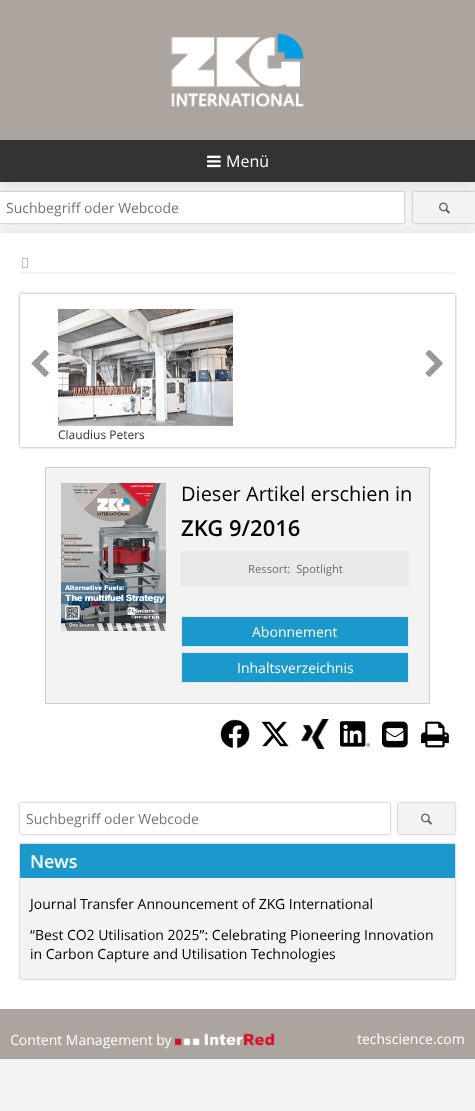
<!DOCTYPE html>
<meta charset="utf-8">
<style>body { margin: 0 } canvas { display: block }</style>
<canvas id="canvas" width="475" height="1111"></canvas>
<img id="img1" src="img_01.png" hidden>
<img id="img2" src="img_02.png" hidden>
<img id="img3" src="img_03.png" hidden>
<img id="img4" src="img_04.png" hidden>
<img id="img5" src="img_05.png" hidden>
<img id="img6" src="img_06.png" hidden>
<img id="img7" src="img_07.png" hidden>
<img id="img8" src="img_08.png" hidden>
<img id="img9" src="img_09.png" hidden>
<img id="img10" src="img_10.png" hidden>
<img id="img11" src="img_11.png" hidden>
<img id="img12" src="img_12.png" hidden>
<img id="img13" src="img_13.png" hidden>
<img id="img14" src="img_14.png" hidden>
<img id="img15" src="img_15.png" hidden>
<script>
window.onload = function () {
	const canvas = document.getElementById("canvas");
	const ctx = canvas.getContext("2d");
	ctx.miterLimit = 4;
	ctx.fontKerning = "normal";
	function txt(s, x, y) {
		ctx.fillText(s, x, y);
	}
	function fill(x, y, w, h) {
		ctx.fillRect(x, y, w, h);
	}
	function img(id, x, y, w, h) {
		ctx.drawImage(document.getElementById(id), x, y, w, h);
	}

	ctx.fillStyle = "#F3F3F3";
	fill(0, 0, 475, 1111);
	ctx.fillStyle = "rgba(103, 122, 141, 0.17)";
	ctx.filter = "blur(7.5px)";
	ctx.beginPath();
	ctx.rect(0, 3, 475, 182);
	ctx.fill();
	ctx.filter = "none";
	ctx.fillStyle = "#ABA49F";
	fill(0, 0, 475, 140);
	img("img1", 171, 33, 133, 74);
	ctx.fillStyle = "#333333";
	fill(0, 140, 475, 42);
	img("img2", 207, 155, 14, 13);
	ctx.fillStyle = "#999999";
	ctx.filter = "blur(1px)";
	ctx.beginPath();
	ctx.rect(0, 192, 404, 31);
	ctx.fill();
	ctx.filter = "none";
	ctx.fillStyle = "rgba(103, 122, 141, 0.17)";
	ctx.filter = "blur(7.5px)";
	ctx.beginPath();
	ctx.rect(0, 236, 475, 776);
	ctx.fill();
	ctx.filter = "none";
	ctx.fillStyle = "#FFFFFF";
	fill(0, 192, 404, 31);
	ctx.fillStyle = "#999999";
	ctx.filter = "blur(1px)";
	ctx.beginPath();
	ctx.rect(413, 192, 62, 31);
	ctx.fill();
	ctx.filter = "none";
	ctx.fillStyle = "#F3F3F3";
	fill(413, 192, 62, 31);
	img("img3", 439, 202, 11, 12);
	ctx.fillStyle = "#FFFFFF";
	fill(0, 233, 475, 776);
	ctx.fillStyle = "#F3F3F3";
	fill(20, 272, 435, 2);
	img("img4", 22, 258, 7, 10);
	ctx.save();
	ctx.beginPath();
	ctx.moveTo(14, 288);
	ctx.lineTo(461, 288);
	ctx.lineTo(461, 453);
	ctx.lineTo(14, 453);
	ctx.closePath();
	ctx.moveTo(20, 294);
	ctx.lineTo(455, 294);
	ctx.lineTo(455, 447);
	ctx.lineTo(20, 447);
	ctx.closePath();
	ctx.clip("evenodd");
	ctx.fillStyle = "#999999";
	ctx.filter = "blur(1.5px)";
	ctx.beginPath();
	ctx.rect(20, 294, 435, 153);
	ctx.fill();
	ctx.filter = "none";
	ctx.restore();
	img("img5", 31, 350, 18, 27);
	img("img6", 425, 350, 18, 27);
	img("img7", 58, 309, 175, 117);
	ctx.beginPath();
	ctx.rect(45.5, 467.5, 384, 236);
	ctx.fill();
	ctx.strokeStyle = "#CECECE";
	ctx.stroke();
	img("img8", 61, 483, 105, 148);
	ctx.fillStyle = "#E9E9E9";
	fill(181, 551, 228, 35);
	ctx.fillStyle = "#1B99CC";
	ctx.beginPath();
	ctx.rect(181.5, 616.5, 227, 30);
	ctx.fill();
	ctx.strokeStyle = "#E8E8E8";
	ctx.stroke();
	ctx.beginPath();
	ctx.rect(181.5, 652.5, 227, 30);
	ctx.fill();
	ctx.stroke();
	img("img9", 220, 719, 30, 30);
	img("img10", 261, 721, 28, 26);
	img("img11", 301, 719, 29, 30);
	img("img12", 340, 721, 30, 26);
	img("img13", 382, 721, 26, 27);
	img("img14", 421, 721, 28, 27);
	ctx.save();
	ctx.beginPath();
	ctx.moveTo(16, 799);
	ctx.lineTo(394, 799);
	ctx.lineTo(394, 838);
	ctx.lineTo(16, 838);
	ctx.closePath();
	ctx.moveTo(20, 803);
	ctx.lineTo(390, 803);
	ctx.lineTo(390, 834);
	ctx.lineTo(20, 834);
	ctx.closePath();
	ctx.clip("evenodd");
	ctx.fillStyle = "#999999";
	ctx.filter = "blur(1px)";
	ctx.beginPath();
	ctx.rect(20, 803, 370, 31);
	ctx.fill();
	ctx.filter = "none";
	ctx.restore();
	ctx.fillStyle = "#999999";
	ctx.filter = "blur(1px)";
	ctx.beginPath();
	ctx.rect(398, 803, 57, 31);
	ctx.fill();
	ctx.filter = "none";
	ctx.fillStyle = "#F3F3F3";
	fill(398, 803, 57, 31);
	img("img3", 421, 813, 11, 12);
	ctx.fillStyle = "#999999";
	ctx.filter = "blur(1px)";
	ctx.beginPath();
	ctx.rect(20, 844, 435, 135);
	ctx.fill();
	ctx.filter = "none";
	ctx.fillStyle = "#F3F3F3";
	fill(20, 878, 435, 101);
	ctx.fillStyle = "#1B99CC";
	fill(20, 844, 435, 34);
	ctx.fillStyle = "#ABA49F";
	fill(0, 1009, 475, 50);
	img("img15", 175, 1033, 100, 13);
	ctx.font = "16px Open Sans";
	ctx.fillStyle = "#FFFFFF";
	txt("Menü", 226, 167);
	ctx.font = "14px Open Sans";
	ctx.fillStyle = "#757575";
	txt("Suchbegriff oder Webcode", 6, 213);
	ctx.font = "12px Open Sans";
	ctx.fillStyle = "#333333";
	txt("Claudius Peters", 58, 439);
	ctx.font = "20px Open Sans";
	ctx.fillStyle = "#000000";
	txt("Dieser Artikel erschien in", 181, 501);
	ctx.font = "600 22px Open Sans";
	txt("ZKG 9/2016", 181, 536);
	ctx.font = "11.25px Open Sans";
	ctx.fillStyle = "#6C6C6C";
	txt("Ressort:  Spotlight", 248, 573);
	ctx.font = "14px Open Sans";
	ctx.fillStyle = "#FFFFFF";
	txt("Abonnement", 252, 637);
	txt("Inhaltsverzeichnis", 237, 673);
	ctx.fillStyle = "#757575";
	txt("Suchbegriff oder Webcode", 26, 824);
	ctx.font = "600 18px Open Sans";
	ctx.fillStyle = "#FFFFFF";
	txt("News", 30, 868);
	ctx.font = "14px Open Sans";
	ctx.fillStyle = "#000000";
	txt("Journal Transfer Announcement of ZKG International", 30, 909);
	txt("“Best CO2 Utilisation 2025”: Celebrating Pioneering Innovation", 30, 940);
	txt("in Carbon Capture and Utilisation Technologies", 30, 959);
	ctx.fillStyle = "#FFFFFF";
	txt("Content Management by", 10, 1045);
	txt("techscience.com", 357, 1044);
};
</script>
